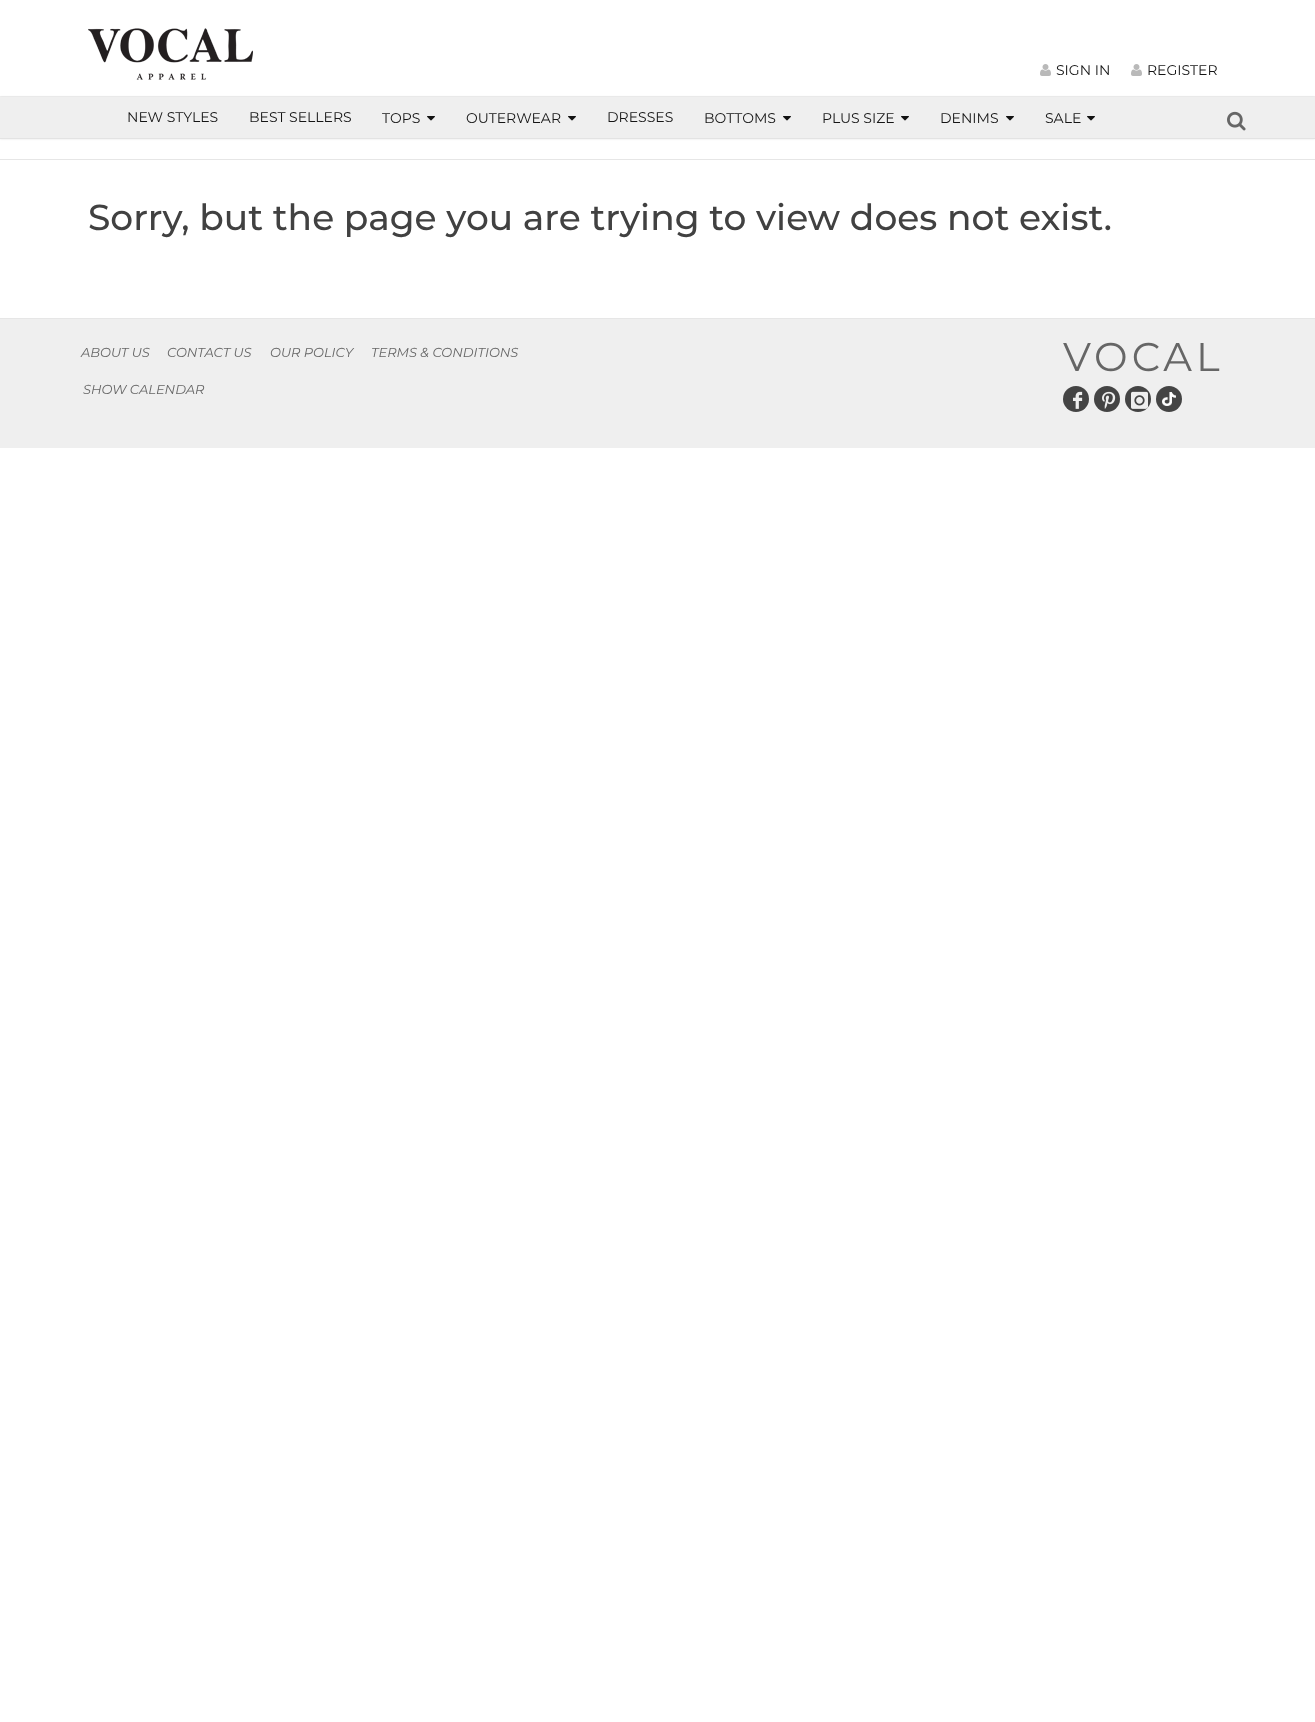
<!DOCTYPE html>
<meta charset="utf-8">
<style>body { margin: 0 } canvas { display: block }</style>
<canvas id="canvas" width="1315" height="1722"></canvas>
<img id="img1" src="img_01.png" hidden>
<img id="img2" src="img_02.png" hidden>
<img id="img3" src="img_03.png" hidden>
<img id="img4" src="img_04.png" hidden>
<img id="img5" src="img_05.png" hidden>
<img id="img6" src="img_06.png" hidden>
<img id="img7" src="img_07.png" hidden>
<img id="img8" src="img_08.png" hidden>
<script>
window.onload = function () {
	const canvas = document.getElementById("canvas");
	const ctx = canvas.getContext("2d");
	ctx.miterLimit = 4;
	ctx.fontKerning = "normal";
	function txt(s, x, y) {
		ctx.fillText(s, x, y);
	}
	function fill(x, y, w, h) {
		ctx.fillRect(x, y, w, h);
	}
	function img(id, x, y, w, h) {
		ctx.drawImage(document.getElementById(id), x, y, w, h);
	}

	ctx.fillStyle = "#FFFFFF";
	fill(0, 0, 1315, 1722);
	ctx.fillStyle = "#F2F2F2";
	fill(0, 96, 1315, 1);
	img("img1", 88, 28, 165, 52);
	img("img2", 1040, 64, 11, 12);
	img("img2", 1131, 64, 11, 12);
	ctx.fillStyle = "rgba(0, 0, 0, 0.1)";
	ctx.filter = "blur(1px)";
	ctx.beginPath();
	ctx.rect(0, 97, 1315, 42);
	ctx.fill();
	ctx.filter = "none";
	ctx.fillStyle = "#EFEFEF";
	fill(0, 97, 1315, 41);
	ctx.fillStyle = "#E3E3E3";
	fill(0, 138, 1315, 1);
	img("img3", 427, 116, 8, 5);
	img("img3", 568, 116, 8, 5);
	img("img3", 783, 116, 8, 5);
	img("img3", 901, 116, 8, 5);
	img("img3", 1006, 116, 8, 5);
	img("img3", 1087, 116, 8, 5);
	img("img4", 1227, 111, 19, 20);
	ctx.fillStyle = "#E6E6E6";
	fill(0, 159, 1315, 1);
	fill(0, 318, 1315, 1);
	ctx.fillStyle = "#EFEFEF";
	fill(0, 319, 1315, 129);
	ctx.fillStyle = "#444444";
	ctx.beginPath();
	ctx.arc(1076, 399, 13, 0, Math.PI * 2);
	ctx.fill();
	img("img5", 1073, 391, 10, 18);
	ctx.beginPath();
	ctx.arc(1107, 399, 13, 0, Math.PI * 2);
	ctx.fill();
	img("img6", 1102, 391, 14, 18);
	ctx.beginPath();
	ctx.arc(1138, 399, 13, 0, Math.PI * 2);
	ctx.fill();
	img("img7", 1131, 391, 17, 18);
	ctx.beginPath();
	ctx.arc(1169, 399, 13, 0, Math.PI * 2);
	ctx.fill();
	img("img8", 1162, 392, 14, 14);
	ctx.font = "14px Montserrat";
	ctx.fillStyle = "#151515";
	txt("SIGN IN", 1056, 75);
	txt("REGISTER", 1147, 75);
	txt("NEW STYLES", 127, 122);
	txt("BEST SELLERS", 249, 122);
	txt("TOPS", 382, 123);
	txt("OUTERWEAR", 466, 123);
	txt("DRESSES", 607, 122);
	txt("BOTTOMS", 704, 123);
	txt("PLUS SIZE", 822, 123);
	txt("DENIMS", 940, 123);
	txt("SALE", 1045, 123);
	ctx.font = "500 36px Montserrat";
	ctx.fillStyle = "#414141";
	txt("Sorry, but the page you are trying to view does not exist.", 88, 230);
	ctx.font = "italic 13px Montserrat";
	ctx.fillStyle = "#666666";
	txt("ABOUT US", 81, 357);
	txt("CONTACT US", 167, 357);
	txt("OUR POLICY", 270, 357);
	txt("TERMS & CONDITIONS", 371, 357);
	txt("SHOW CALENDAR", 83, 394);
	ctx.letterSpacing = "4px";
	ctx.font = "40px Montserrat";
	txt("VOCAL", 1063, 371);
};
</script>
